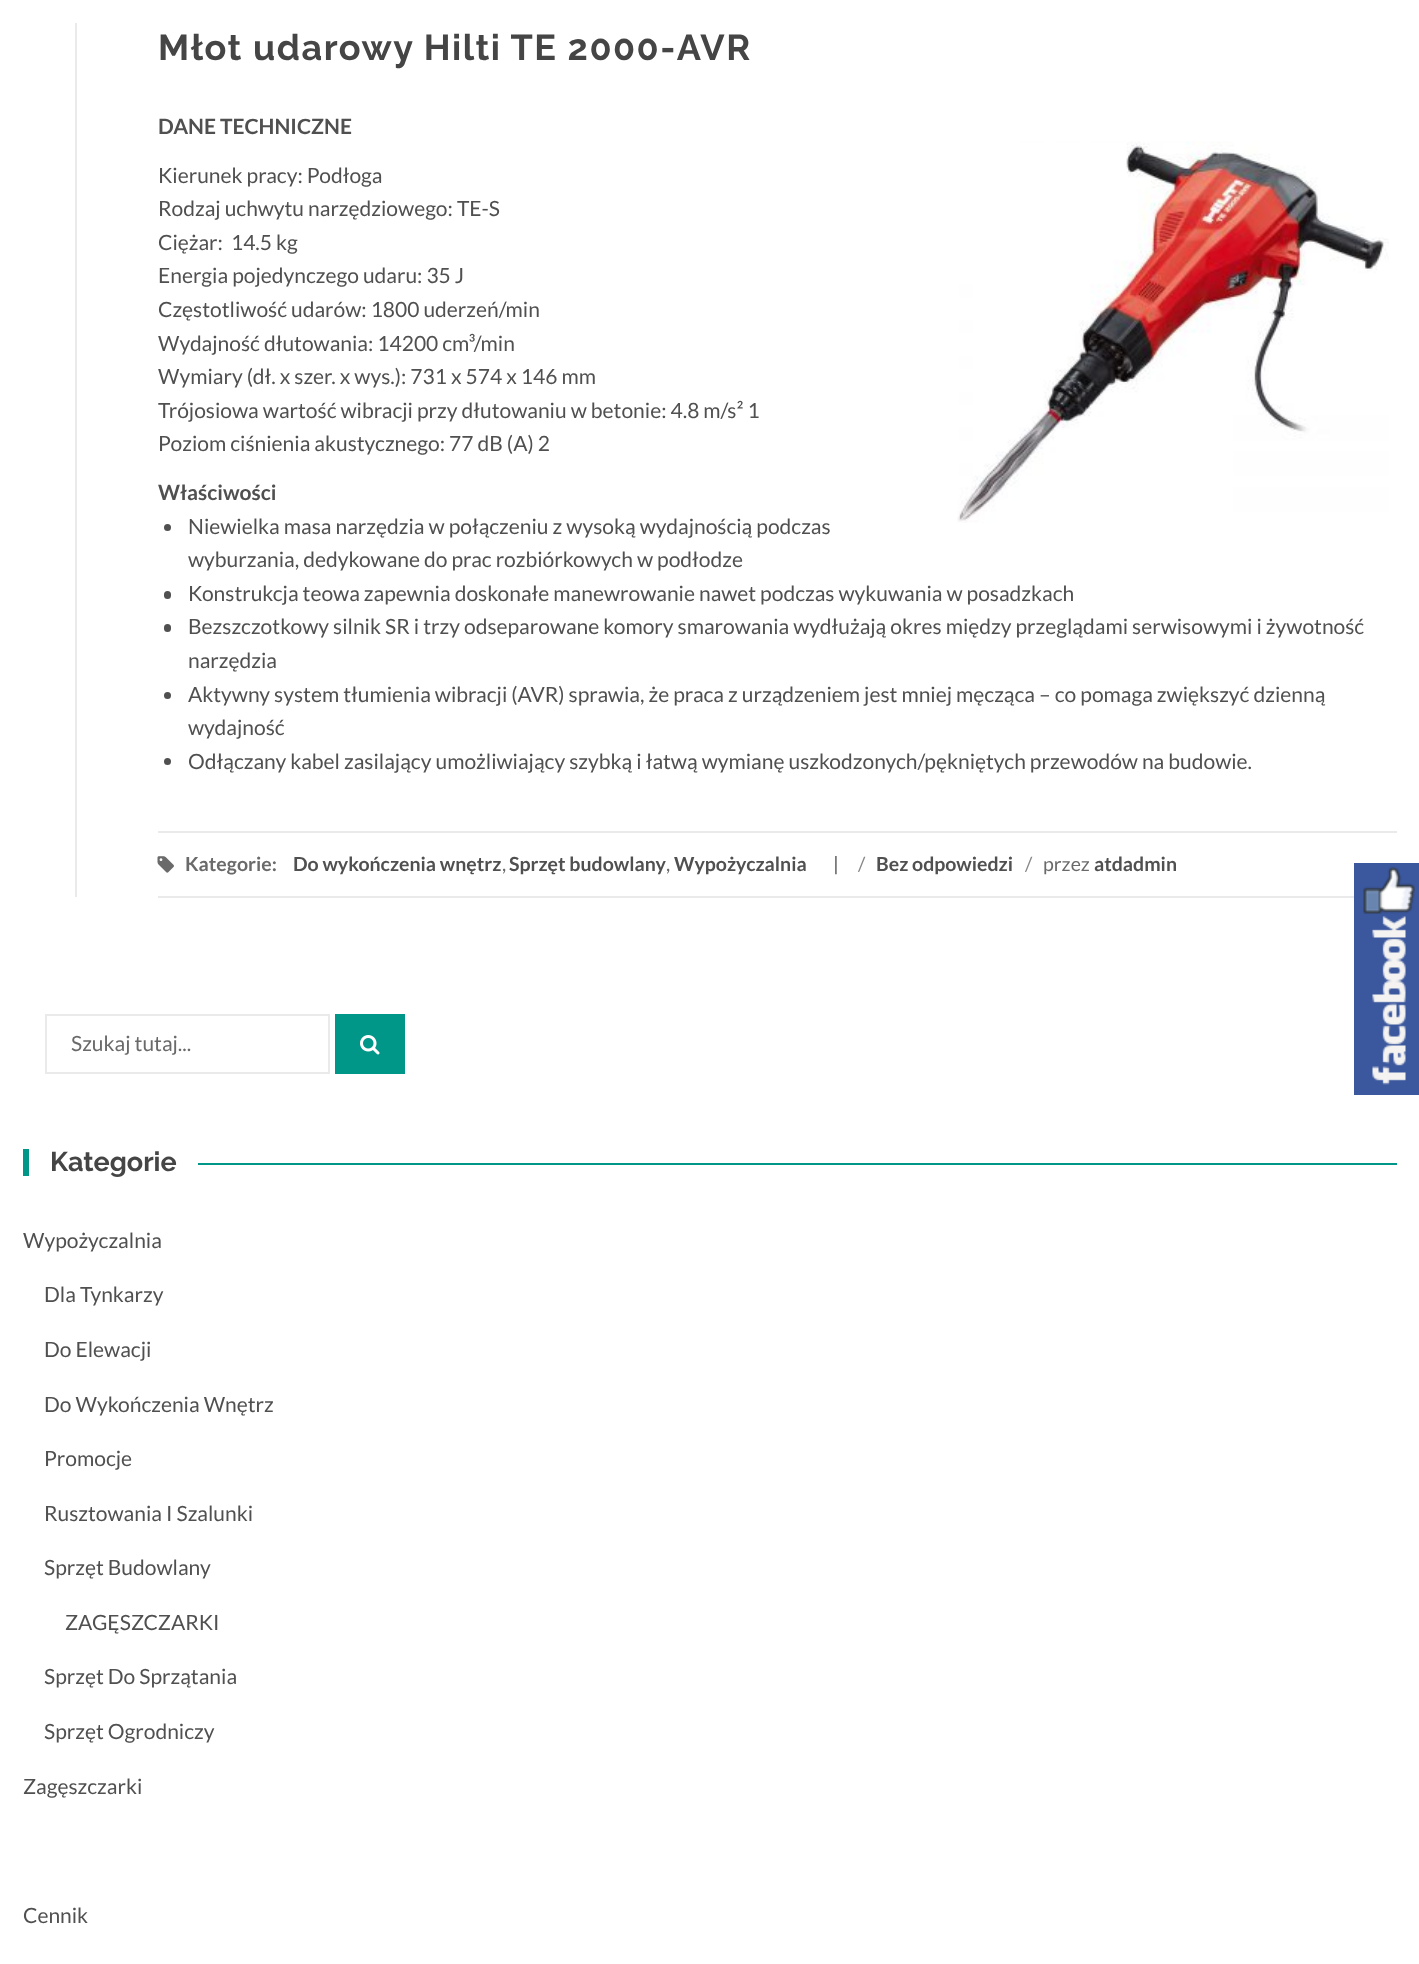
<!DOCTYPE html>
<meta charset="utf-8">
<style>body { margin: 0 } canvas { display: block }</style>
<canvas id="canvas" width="1419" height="1964"></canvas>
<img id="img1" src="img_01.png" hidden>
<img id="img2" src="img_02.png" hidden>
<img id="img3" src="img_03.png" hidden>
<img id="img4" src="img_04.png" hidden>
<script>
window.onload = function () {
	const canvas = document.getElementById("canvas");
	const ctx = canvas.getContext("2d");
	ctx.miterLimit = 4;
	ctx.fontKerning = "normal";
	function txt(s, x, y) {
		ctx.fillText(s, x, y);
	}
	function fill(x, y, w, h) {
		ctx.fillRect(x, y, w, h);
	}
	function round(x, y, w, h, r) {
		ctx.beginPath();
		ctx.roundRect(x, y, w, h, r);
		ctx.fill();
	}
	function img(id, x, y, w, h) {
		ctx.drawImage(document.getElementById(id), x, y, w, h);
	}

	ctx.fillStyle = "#FFFFFF";
	fill(0, 0, 1419, 1964);
	ctx.fillStyle = "#EAEAEA";
	fill(75, 23, 2, 874);
	img("img1", 957, 141, 432, 382);
	ctx.fillStyle = "#505050";
	ctx.beginPath();
	ctx.arc(167.5, 527.5, 3.5, 0, Math.PI * 2);
	ctx.fill();
	round(164, 591, 7, 8, 3.5);
	round(164, 624, 7, 8, 3.5);
	ctx.beginPath();
	ctx.arc(167.5, 695.5, 3.5, 0, Math.PI * 2);
	ctx.fill();
	ctx.beginPath();
	ctx.arc(167.5, 761.5, 3.5, 0, Math.PI * 2);
	ctx.fill();
	ctx.fillStyle = "#EAEAEA";
	fill(158, 831, 1239, 2);
	fill(158, 896, 1196, 2);
	img("img2", 157, 856, 17, 17);
	ctx.strokeStyle = "#EAEAEA";
	ctx.lineWidth = 2;
	ctx.strokeRect(46, 1015, 283, 58);
	ctx.fillStyle = "#009688";
	fill(335, 1014, 70, 60);
	img("img3", 360, 1035, 20, 20);
	fill(23, 1149, 6, 27);
	fill(198, 1163, 1199, 2);
	img("img4", 1354, 863, 65, 232);
	ctx.letterSpacing = "1.5px";
	ctx.font = "bold 36px Raleway";
	ctx.fillStyle = "#454545";
	txt("Młot udarowy Hilti TE 2000-AVR", 158, 60);
	ctx.letterSpacing = "0px";
	ctx.font = "bold 21px Lato";
	ctx.fillStyle = "#505050";
	txt("DANE TECHNICZNE", 158, 134);
	ctx.font = "21px Lato";
	txt("Kierunek pracy: Podłoga", 158, 183);
	txt("Rodzaj uchwytu narzędziowego: TE-S", 158, 216);
	txt("Ciężar:  14.5 kg", 158, 250);
	txt("Energia pojedynczego udaru: 35 J", 158, 283);
	txt("Częstotliwość udarów: 1800 uderzeń/min", 158, 317);
	txt("Wydajność dłutowania: 14200 cm³/min", 158, 351);
	txt("Wymiary (dł. x szer. x wys.): 731 x 574 x 146 mm", 158, 384);
	txt("Trójosiowa wartość wibracji przy dłutowaniu w betonie: 4.8 m/s² 1", 158, 418);
	txt("Poziom ciśnienia akustycznego: 77 dB (A) 2", 158, 451);
	ctx.font = "bold 21px Lato";
	txt("Właściwości", 158, 500);
	ctx.font = "21px Lato";
	txt("Niewielka masa narzędzia w połączeniu z wysoką wydajnością podczas", 188, 534);
	txt("wyburzania, dedykowane do prac rozbiórkowych w podłodze", 188, 567);
	txt("Konstrukcja teowa zapewnia doskonałe manewrowanie nawet podczas wykuwania w posadzkach", 188, 601);
	txt("Bezszczotkowy silnik SR i trzy odseparowane komory smarowania wydłużają okres między przeglądami serwisowymi i żywotność", 188, 634);
	txt("narzędzia", 188, 668);
	txt("Aktywny system tłumienia wibracji (AVR) sprawia, że praca z urządzeniem jest mniej męcząca – co pomaga zwiększyć dzienną", 188, 702);
	txt("wydajność", 188, 735);
	txt("Odłączany kabel zasilający umożliwiający szybką i łatwą wymianę uszkodzonych/pękniętych przewodów na budowie.", 188, 769);
	ctx.font = "bold 19.5px Lato";
	ctx.fillStyle = "#6A6A6A";
	txt("Kategorie:", 185, 871);
	ctx.fillStyle = "#505050";
	txt("Do wykończenia wnętrz", 293, 871);
	ctx.font = "19.5px Lato";
	ctx.fillStyle = "#6A6A6A";
	txt(",", 502, 871);
	ctx.font = "bold 19.5px Lato";
	ctx.fillStyle = "#505050";
	txt("Sprzęt budowlany", 509, 871);
	ctx.font = "19.5px Lato";
	ctx.fillStyle = "#6A6A6A";
	txt(",", 666, 871);
	ctx.font = "bold 19.5px Lato";
	ctx.fillStyle = "#505050";
	txt("Wypożyczalnia", 674, 871);
	ctx.font = "19.5px Lato";
	txt("|", 833, 871);
	ctx.fillStyle = "#888888";
	txt("/", 858, 871);
	ctx.font = "bold 19.5px Lato";
	ctx.fillStyle = "#505050";
	txt("Bez odpowiedzi", 876, 871);
	ctx.font = "19.5px Lato";
	ctx.fillStyle = "#888888";
	txt("/", 1025, 871);
	ctx.fillStyle = "#6A6A6A";
	txt("przez", 1043, 871);
	ctx.font = "bold 19.5px Lato";
	ctx.fillStyle = "#505050";
	txt("atdadmin", 1094, 871);
	ctx.font = "21px Lato";
	ctx.fillStyle = "#6A6A6A";
	txt("Szukaj tutaj...", 71, 1051);
	ctx.font = "bold 27px Raleway";
	ctx.fillStyle = "#454545";
	txt("Kategorie", 50, 1171);
	ctx.font = "21px Lato";
	ctx.fillStyle = "#505050";
	txt("Wypożyczalnia", 23, 1248);
	txt("Dla Tynkarzy", 44, 1302);
	txt("Do Elewacji", 44, 1357);
	txt("Do Wykończenia Wnętrz", 44, 1412);
	txt("Promocje", 44, 1466);
	txt("Rusztowania I Szalunki", 44, 1521);
	txt("Sprzęt Budowlany", 44, 1575);
	txt("ZAGĘSZCZARKI", 65, 1630);
	txt("Sprzęt Do Sprzątania", 44, 1684);
	txt("Sprzęt Ogrodniczy", 44, 1739);
	txt("Zagęszczarki", 23, 1794);
	txt("Cennik", 23, 1923);
};
</script>
